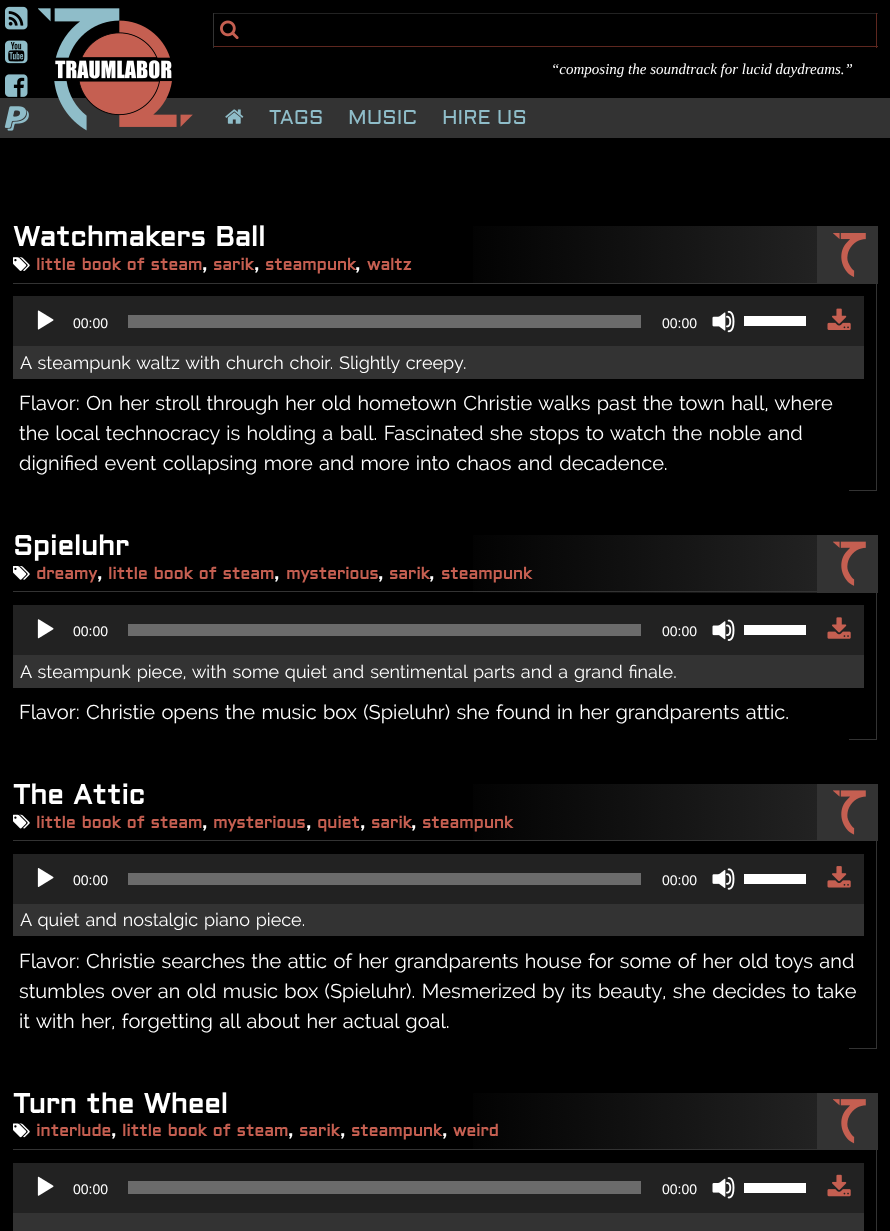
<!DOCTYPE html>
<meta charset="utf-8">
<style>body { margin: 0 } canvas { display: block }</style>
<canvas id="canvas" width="890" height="1231"></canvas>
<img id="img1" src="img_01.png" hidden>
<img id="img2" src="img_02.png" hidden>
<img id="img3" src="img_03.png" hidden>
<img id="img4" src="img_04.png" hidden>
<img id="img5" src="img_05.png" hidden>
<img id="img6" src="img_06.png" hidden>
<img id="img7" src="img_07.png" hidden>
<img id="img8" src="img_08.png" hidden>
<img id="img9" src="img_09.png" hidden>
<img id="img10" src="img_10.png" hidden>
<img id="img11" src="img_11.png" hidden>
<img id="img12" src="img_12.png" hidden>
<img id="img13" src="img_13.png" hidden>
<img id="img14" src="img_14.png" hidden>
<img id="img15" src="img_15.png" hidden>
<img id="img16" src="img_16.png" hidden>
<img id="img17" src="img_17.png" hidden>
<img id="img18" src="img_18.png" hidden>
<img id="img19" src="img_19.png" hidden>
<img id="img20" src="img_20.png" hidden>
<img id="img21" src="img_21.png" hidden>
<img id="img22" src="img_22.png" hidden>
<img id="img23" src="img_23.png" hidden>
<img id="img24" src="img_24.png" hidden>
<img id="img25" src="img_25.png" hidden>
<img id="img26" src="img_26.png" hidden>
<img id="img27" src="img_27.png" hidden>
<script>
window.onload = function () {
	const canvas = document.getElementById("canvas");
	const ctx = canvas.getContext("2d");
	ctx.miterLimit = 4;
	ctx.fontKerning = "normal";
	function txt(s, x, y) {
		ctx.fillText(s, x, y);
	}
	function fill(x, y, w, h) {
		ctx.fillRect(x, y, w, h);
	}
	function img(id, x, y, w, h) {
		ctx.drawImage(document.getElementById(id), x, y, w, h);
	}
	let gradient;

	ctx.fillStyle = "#000000";
	fill(0, 0, 890, 1231);
	img("img1", 5, 6, 23, 24);
	img("img2", 5, 40, 23, 24);
	img("img3", 5, 74, 23, 23);
	ctx.fillStyle = "#333333";
	fill(0, 98, 890, 40);
	img("img4", 4, 106, 25, 25);
	img("img5", 38, 8, 155, 123);
	ctx.fillStyle = "#222222";
	fill(213, 13, 665, 1);
	ctx.fillStyle = "#5E271F";
	fill(876, 13, 1, 35);
	fill(213, 46, 665, 1);
	ctx.fillStyle = "#333333";
	fill(213, 13, 1, 35);
	img("img6", 220, 20, 19, 20);
	img("img7", 225, 109, 19, 15);
	gradient = ctx.createLinearGradient(878, 254, 13, 254);
	gradient.addColorStop(0, "#333333");
	gradient.addColorStop(0.07, "#333333");
	gradient.addColorStop(0.07, "#222222");
	gradient.addColorStop(0.5, "#000000");
	gradient.addColorStop(1, "#000000");
	ctx.fillStyle = gradient;
	fill(473, 226, 405, 57);
	ctx.fillStyle = "#333333";
	fill(13, 283, 865, 1);
	img("img8", 13, 257, 17, 14);
	img("img9", 833, 233, 33, 44);
	fill(876, 284, 1, 207);
	ctx.fillStyle = "#222222";
	fill(13, 296, 851, 50);
	img("img10", 37, 310, 17, 20);
	ctx.fillStyle = "#6B6B6B";
	fill(128, 315, 513, 13);
	img("img11", 712, 310, 23, 23);
	ctx.fillStyle = "#FFFFFF";
	fill(744, 316, 62, 10);
	img("img12", 827, 308, 24, 22);
	ctx.fillStyle = "#333333";
	fill(13, 346, 851, 33);
	fill(849, 490, 27, 1);
	gradient = ctx.createLinearGradient(878, 563, 13, 563);
	gradient.addColorStop(0, "#333333");
	gradient.addColorStop(0.07, "#333333");
	gradient.addColorStop(0.07, "#222222");
	gradient.addColorStop(0.5, "#000000");
	gradient.addColorStop(1, "#000000");
	ctx.fillStyle = gradient;
	fill(473, 535, 405, 58);
	ctx.fillStyle = "#333333";
	fill(13, 591, 804, 1);
	img("img13", 13, 566, 17, 14);
	img("img14", 833, 541, 33, 45);
	fill(876, 593, 1, 147);
	ctx.fillStyle = "#222222";
	fill(13, 605, 851, 50);
	img("img15", 37, 619, 17, 20);
	ctx.fillStyle = "#6B6B6B";
	fill(128, 624, 513, 12);
	img("img16", 712, 619, 23, 22);
	ctx.fillStyle = "#FFFFFF";
	fill(744, 625, 62, 10);
	img("img17", 827, 617, 24, 22);
	ctx.fillStyle = "#333333";
	fill(13, 655, 851, 33);
	fill(849, 739, 27, 1);
	gradient = ctx.createLinearGradient(878, 812, 13, 812);
	gradient.addColorStop(0, "#333333");
	gradient.addColorStop(0.07, "#333333");
	gradient.addColorStop(0.07, "#222222");
	gradient.addColorStop(0.5, "#000000");
	gradient.addColorStop(1, "#000000");
	ctx.fillStyle = gradient;
	fill(473, 784, 405, 56);
	ctx.fillStyle = "#333333";
	fill(13, 840, 865, 1);
	img("img18", 13, 814, 17, 15);
	img("img19", 833, 790, 33, 45);
	fill(876, 841, 1, 208);
	ctx.fillStyle = "#222222";
	fill(13, 854, 851, 50);
	img("img20", 37, 868, 17, 19);
	ctx.fillStyle = "#6B6B6B";
	fill(128, 873, 513, 12);
	img("img21", 712, 868, 23, 22);
	ctx.fillStyle = "#FFFFFF";
	fill(744, 874, 62, 10);
	img("img22", 827, 866, 24, 22);
	ctx.fillStyle = "#333333";
	fill(13, 904, 851, 32);
	fill(849, 1048, 27, 1);
	gradient = ctx.createLinearGradient(878, 1121, 13, 1121);
	gradient.addColorStop(0, "#333333");
	gradient.addColorStop(0.07, "#333333");
	gradient.addColorStop(0.07, "#222222");
	gradient.addColorStop(0.5, "#000000");
	gradient.addColorStop(1, "#000000");
	ctx.fillStyle = gradient;
	fill(473, 1093, 405, 56);
	ctx.fillStyle = "#333333";
	fill(13, 1149, 865, 1);
	img("img23", 13, 1123, 17, 15);
	img("img24", 833, 1099, 33, 45);
	fill(876, 1150, 1, 81);
	ctx.fillStyle = "#222222";
	fill(13, 1163, 851, 50);
	img("img25", 37, 1176, 17, 20);
	ctx.fillStyle = "#6B6B6B";
	fill(128, 1181, 513, 13);
	img("img26", 712, 1177, 23, 22);
	ctx.fillStyle = "#FFFFFF";
	fill(744, 1183, 62, 10);
	img("img27", 827, 1174, 24, 23);
	ctx.fillStyle = "#333333";
	fill(13, 1213, 851, 18);
	ctx.font = "italic 15px Liberation Serif";
	ctx.fillStyle = "#FFFFFF";
	txt("“composing the soundtrack for lucid daydreams.”", 551, 74);
	ctx.font = "20px Aldrich";
	ctx.fillStyle = "#8FBDC9";
	txt("TAGS", 269, 124);
	txt("MUSIC", 348, 124);
	txt("HIRE US", 442, 124);
	ctx.wordSpacing = "1.25px";
	ctx.font = "bold 27.5px Aldrich";
	ctx.fillStyle = "#FFFFFF";
	txt("Watchmakers Ball", 13, 246);
	ctx.font = "bold 16.25px Aldrich";
	ctx.fillStyle = "#C55F51";
	txt("little book of steam", 36, 270);
	ctx.wordSpacing = "0px";
	ctx.fillStyle = "#FFFFFF";
	txt(",", 202, 270);
	ctx.fillStyle = "#C55F51";
	txt("sarik", 213, 270);
	ctx.fillStyle = "#FFFFFF";
	txt(",", 254, 270);
	ctx.fillStyle = "#C55F51";
	txt("steampunk", 265, 270);
	ctx.fillStyle = "#FFFFFF";
	txt(",", 355, 270);
	ctx.fillStyle = "#C55F51";
	txt("waltz", 367, 270);
	ctx.font = "14px Liberation Sans";
	ctx.fillStyle = "#FFFFFF";
	txt("00:00", 73, 328);
	txt("00:00", 662, 328);
	ctx.wordSpacing = "1.25px";
	ctx.font = "18px Raleway";
	txt("A steampunk waltz with church choir. Slightly creepy.", 20, 369);
	ctx.font = "20px Raleway";
	txt("Flavor: On her stroll through her old hometown Christie walks past the town hall, where", 19, 410);
	txt("the local technocracy is holding a ball. Fascinated she stops to watch the noble and", 19, 440);
	txt("dignified event collapsing more and more into chaos and decadence.", 19, 470);
	ctx.wordSpacing = "0px";
	ctx.font = "bold 27.5px Aldrich";
	txt("Spieluhr", 13, 555);
	ctx.font = "bold 16.25px Aldrich";
	ctx.fillStyle = "#C55F51";
	txt("dreamy", 36, 579);
	ctx.fillStyle = "#FFFFFF";
	txt(",", 97, 579);
	ctx.wordSpacing = "1.25px";
	ctx.fillStyle = "#C55F51";
	txt("little book of steam", 108, 579);
	ctx.wordSpacing = "0px";
	ctx.fillStyle = "#FFFFFF";
	txt(",", 274, 579);
	ctx.fillStyle = "#C55F51";
	txt("mysterious", 286, 579);
	ctx.fillStyle = "#FFFFFF";
	txt(",", 378, 579);
	ctx.fillStyle = "#C55F51";
	txt("sarik", 389, 579);
	ctx.fillStyle = "#FFFFFF";
	txt(",", 429, 579);
	ctx.fillStyle = "#C55F51";
	txt("steampunk", 441, 579);
	ctx.font = "14px Liberation Sans";
	ctx.fillStyle = "#FFFFFF";
	txt("00:00", 73, 636);
	txt("00:00", 662, 636);
	ctx.wordSpacing = "1.25px";
	ctx.font = "18px Raleway";
	txt("A steampunk piece, with some quiet and sentimental parts and a grand finale.", 20, 678);
	ctx.font = "20px Raleway";
	txt("Flavor: Christie opens the music box (Spieluhr) she found in her grandparents attic.", 19, 719);
	ctx.font = "bold 27.5px Aldrich";
	txt("The Attic", 13, 804);
	ctx.font = "bold 16.25px Aldrich";
	ctx.fillStyle = "#C55F51";
	txt("little book of steam", 36, 828);
	ctx.wordSpacing = "0px";
	ctx.fillStyle = "#FFFFFF";
	txt(",", 202, 828);
	ctx.fillStyle = "#C55F51";
	txt("mysterious", 213, 828);
	ctx.fillStyle = "#FFFFFF";
	txt(",", 306, 828);
	ctx.fillStyle = "#C55F51";
	txt("quiet", 317, 828);
	ctx.fillStyle = "#FFFFFF";
	txt(",", 360, 828);
	ctx.fillStyle = "#C55F51";
	txt("sarik", 371, 828);
	ctx.fillStyle = "#FFFFFF";
	txt(",", 411, 828);
	ctx.fillStyle = "#C55F51";
	txt("steampunk", 422, 828);
	ctx.font = "14px Liberation Sans";
	ctx.fillStyle = "#FFFFFF";
	txt("00:00", 73, 885);
	txt("00:00", 662, 885);
	ctx.wordSpacing = "1.25px";
	ctx.font = "18px Raleway";
	txt("A quiet and nostalgic piano piece.", 20, 926);
	ctx.font = "20px Raleway";
	txt("Flavor: Christie searches the attic of her grandparents house for some of her old toys and", 19, 968);
	txt("stumbles over an old music box (Spieluhr). Mesmerized by its beauty, she decides to take", 19, 998);
	txt("it with her, forgetting all about her actual goal.", 19, 1028);
	ctx.font = "bold 27.5px Aldrich";
	txt("Turn the Wheel", 13, 1113);
	ctx.wordSpacing = "0px";
	ctx.font = "bold 16.25px Aldrich";
	ctx.fillStyle = "#C55F51";
	txt("interlude", 36, 1136);
	ctx.fillStyle = "#FFFFFF";
	txt(",", 111, 1136);
	ctx.wordSpacing = "1.25px";
	ctx.fillStyle = "#C55F51";
	txt("little book of steam", 122, 1136);
	ctx.wordSpacing = "0px";
	ctx.fillStyle = "#FFFFFF";
	txt(",", 288, 1136);
	ctx.fillStyle = "#C55F51";
	txt("sarik", 299, 1136);
	ctx.fillStyle = "#FFFFFF";
	txt(",", 340, 1136);
	ctx.fillStyle = "#C55F51";
	txt("steampunk", 351, 1136);
	ctx.fillStyle = "#FFFFFF";
	txt(",", 442, 1136);
	ctx.fillStyle = "#C55F51";
	txt("weird", 453, 1136);
	ctx.font = "14px Liberation Sans";
	ctx.fillStyle = "#FFFFFF";
	txt("00:00", 73, 1194);
	txt("00:00", 662, 1194);
};
</script>
